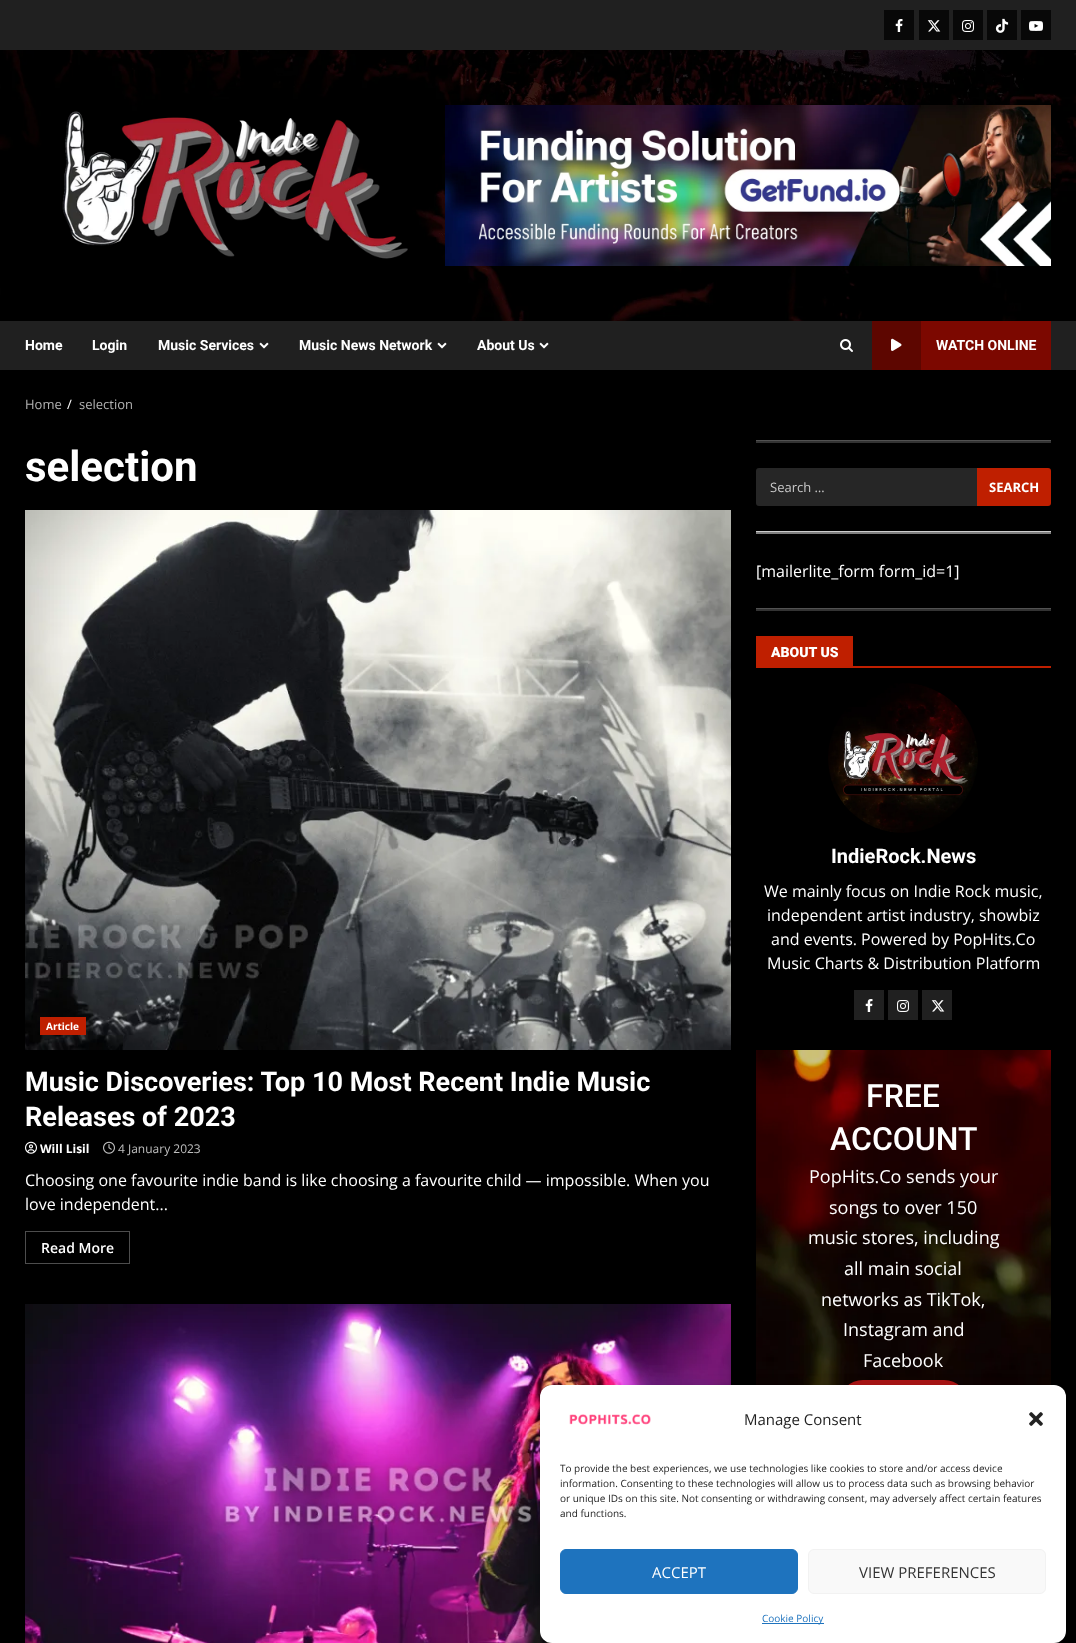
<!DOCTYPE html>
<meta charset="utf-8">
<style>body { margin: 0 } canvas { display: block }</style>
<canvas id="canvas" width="1076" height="1643"></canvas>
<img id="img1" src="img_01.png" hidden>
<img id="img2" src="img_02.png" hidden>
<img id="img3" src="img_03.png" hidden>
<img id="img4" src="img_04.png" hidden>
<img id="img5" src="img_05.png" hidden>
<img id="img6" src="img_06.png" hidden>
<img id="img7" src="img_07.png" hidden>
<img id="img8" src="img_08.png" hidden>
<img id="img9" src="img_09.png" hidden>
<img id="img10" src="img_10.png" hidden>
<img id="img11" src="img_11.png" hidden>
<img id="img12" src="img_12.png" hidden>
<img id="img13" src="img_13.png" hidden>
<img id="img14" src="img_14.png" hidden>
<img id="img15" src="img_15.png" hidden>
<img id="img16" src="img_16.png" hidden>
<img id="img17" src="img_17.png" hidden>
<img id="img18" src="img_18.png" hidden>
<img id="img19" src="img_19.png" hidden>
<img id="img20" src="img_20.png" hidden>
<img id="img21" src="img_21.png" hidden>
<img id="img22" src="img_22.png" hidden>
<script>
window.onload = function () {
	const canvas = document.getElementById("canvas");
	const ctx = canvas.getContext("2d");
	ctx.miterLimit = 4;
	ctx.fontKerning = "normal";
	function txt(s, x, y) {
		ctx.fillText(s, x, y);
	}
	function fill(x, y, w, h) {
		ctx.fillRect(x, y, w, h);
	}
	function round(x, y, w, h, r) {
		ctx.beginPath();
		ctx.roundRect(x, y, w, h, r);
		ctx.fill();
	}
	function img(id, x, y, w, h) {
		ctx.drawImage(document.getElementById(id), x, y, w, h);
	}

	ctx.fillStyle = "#000000";
	fill(0, 0, 1076, 1643);
	ctx.fillStyle = "#202020";
	fill(0, 0, 1076, 50);
	ctx.fillStyle = "#080808";
	fill(884, 10, 30, 30);
	img("img1", 895, 19, 8, 13);
	fill(919, 10, 30, 30);
	img("img2", 927, 20, 14, 12);
	fill(953, 10, 30, 30);
	img("img3", 962, 20, 12, 12);
	fill(987, 10, 30, 30);
	img("img4", 995, 18, 14, 15);
	fill(1021, 10, 30, 30);
	img("img5", 1029, 21, 14, 10);
	img("img6", 0, 50, 1076, 271);
	img("img7", 62, 111, 346, 148);
	img("img8", 445, 105, 606, 161);
	ctx.fillStyle = "#202020";
	fill(0, 321, 1076, 49);
	img("img9", 259, 342, 10, 7);
	img("img9", 437, 342, 10, 7);
	img("img9", 539, 342, 10, 7);
	img("img10", 840, 339, 13, 13);
	ctx.fillStyle = "#7C0800";
	fill(921, 321, 130, 49);
	ctx.fillStyle = "#5D0600";
	fill(872, 321, 49, 49);
	img("img11", 891, 338, 11, 13);
	img("img12", 25, 510, 706, 540);
	ctx.fillStyle = "#BF1F00";
	fill(40, 1017, 46, 18);
	img("img13", 25, 1141, 12, 13);
	img("img14", 103, 1141, 12, 13);
	ctx.strokeStyle = "#4D4D4D";
	ctx.strokeRect(25.5, 1231.5, 104, 32);
	img("img15", 25, 1304, 706, 339);
	ctx.fillStyle = "#525252";
	fill(756, 440, 295, 1);
	ctx.fillStyle = "#333333";
	fill(756, 441, 295, 2);
	ctx.fillStyle = "#262626";
	ctx.beginPath();
	ctx.roundRect(756, 468, 221, 38, [3, 0, 0, 3]);
	ctx.fill();
	ctx.fillStyle = "#BF1F00";
	ctx.beginPath();
	ctx.roundRect(977, 468, 74, 38, [0, 3, 3, 0]);
	ctx.fill();
	ctx.fillStyle = "#CCCCCC";
	fill(756, 531, 295, 1);
	ctx.fillStyle = "#808080";
	fill(756, 532, 295, 2);
	ctx.fillStyle = "#525252";
	fill(756, 608, 295, 1);
	ctx.fillStyle = "#333333";
	fill(756, 609, 295, 2);
	ctx.fillStyle = "#BF1F00";
	fill(756, 666, 295, 2);
	fill(756, 636, 97, 30);
	img("img16", 828, 683, 150, 150);
	ctx.fillStyle = "#202020";
	fill(854, 990, 30, 30);
	img("img17", 865, 999, 8, 13);
	fill(888, 990, 30, 30);
	img("img18", 897, 1000, 12, 12);
	fill(922, 990, 30, 30);
	img("img19", 931, 1000, 14, 12);
	img("img20", 756, 1050, 295, 335);
	ctx.fillStyle = "#A81414";
	round(839, 1380, 129, 48, 24);
	ctx.fillStyle = "rgba(0, 0, 0, 0.23)";
	ctx.filter = "blur(3px)";
	ctx.beginPath();
	ctx.roundRect(540, 1391, 526, 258, 12);
	ctx.fill();
	ctx.filter = "none";
	ctx.fillStyle = "rgba(0, 0, 0, 0.19)";
	ctx.filter = "blur(10px)";
	ctx.beginPath();
	ctx.roundRect(540, 1395, 526, 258, 12);
	ctx.fill();
	ctx.filter = "none";
	ctx.fillStyle = "#FFFFFF";
	round(540, 1385, 526, 258, 12);
	img("img21", 569, 1414, 82, 11);
	img("img22", 1029, 1412, 14, 14);
	ctx.fillStyle = "#1E73BE";
	ctx.beginPath();
	ctx.roundRect(560.5, 1549.5, 237, 44, 5.5);
	ctx.fill();
	ctx.strokeStyle = "#1E73BE";
	ctx.stroke();
	ctx.fillStyle = "#F9F9F9";
	ctx.beginPath();
	ctx.roundRect(808.5, 1549.5, 237, 44, 5.5);
	ctx.fill();
	ctx.strokeStyle = "#F2F2F2";
	ctx.stroke();
	ctx.fillStyle = "#1E73BE";
	fill(762, 1623, 62, 1);
	ctx.font = "bold 14px Roboto";
	ctx.fillStyle = "#FFFFFF";
	txt("Home", 25, 350);
	txt("Login", 92, 350);
	txt("Music Services", 158, 350);
	txt("Music News Network", 299, 350);
	txt("About Us", 477, 350);
	txt("WATCH ONLINE", 936, 350);
	ctx.font = "13px Open Sans";
	ctx.fillStyle = "#B3B3B3";
	txt("Home", 25, 409);
	ctx.fillStyle = "#FFFFFF";
	txt("/", 67, 409);
	ctx.fillStyle = "#B3B3B3";
	txt("selection", 79, 409);
	ctx.font = "bold 42px Roboto";
	ctx.fillStyle = "#FFFFFF";
	txt("selection", 25, 481);
	ctx.font = "bold 10px Open Sans";
	txt("Article", 46, 1030);
	ctx.font = "bold 27px Roboto";
	txt("Music Discoveries: Top 10 Most Recent Indie Music", 25, 1091);
	txt("Releases of 2023", 25, 1126);
	ctx.font = "bold 12px Open Sans";
	txt("Will Lisil", 40, 1153);
	ctx.font = "12px Open Sans";
	ctx.fillStyle = "#BFBFBF";
	txt("4 January 2023", 118, 1153);
	ctx.font = "16px Open Sans";
	ctx.fillStyle = "#FFFFFF";
	txt("Choosing one favourite indie band is like choosing a favourite child — impossible. When you", 25, 1186);
	txt("love independent...", 25, 1210);
	ctx.font = "600 14px Open Sans";
	txt("Read More", 41, 1253);
	ctx.font = "13px Open Sans";
	ctx.fillStyle = "#C9C9C9";
	txt("Search …", 770, 492);
	ctx.font = "bold 13px Open Sans";
	ctx.fillStyle = "#FFFFFF";
	txt("SEARCH", 989, 492);
	ctx.font = "16px Open Sans";
	txt("[mailerlite_form form_id=1]", 756, 577);
	ctx.font = "900 14px Roboto";
	txt("ABOUT US", 771, 657);
	ctx.font = "bold 20px Roboto";
	txt("IndieRock.News", 831, 863);
	ctx.font = "16px Open Sans";
	txt("We mainly focus on Indie Rock music,", 764, 897);
	txt("independent artist industry, showbiz", 767, 921);
	txt("and events. Powered by PopHits.Co", 771, 945);
	txt("Music Charts & Distribution Platform", 767, 969);
	ctx.font = "500 32px Roboto";
	txt("FREE", 866, 1107);
	txt("ACCOUNT", 830, 1150);
	ctx.font = "18px Open Sans";
	txt("PopHits.Co sends your", 809, 1183);
	txt("songs to over 150", 829, 1214);
	txt("music stores, including", 808, 1244);
	txt("all main social", 844, 1275);
	txt("networks as TikTok,", 821, 1306);
	txt("Instagram and", 843, 1336);
	txt("Facebook", 863, 1367);
	ctx.font = "15px Open Sans";
	ctx.fillStyle = "#222222";
	txt("Manage Consent", 744, 1425);
	ctx.font = "10px Open Sans";
	txt("To provide the best experiences, we use technologies like cookies to store and/or access device", 560, 1472);
	txt("information. Consenting to these technologies will allow us to process data such as browsing behavior", 560, 1487);
	txt("or unique IDs on this site. Not consenting or withdrawing consent, may adversely affect certain features", 560, 1502);
	txt("and functions.", 560, 1517);
	ctx.font = "15px Open Sans";
	ctx.fillStyle = "#FFFFFF";
	txt("ACCEPT", 652, 1578);
	ctx.fillStyle = "#333333";
	txt("VIEW PREFERENCES", 859, 1578);
	ctx.font = "10px Open Sans";
	ctx.fillStyle = "#1E73BE";
	txt("Cookie Policy", 762, 1622);
};
</script>
